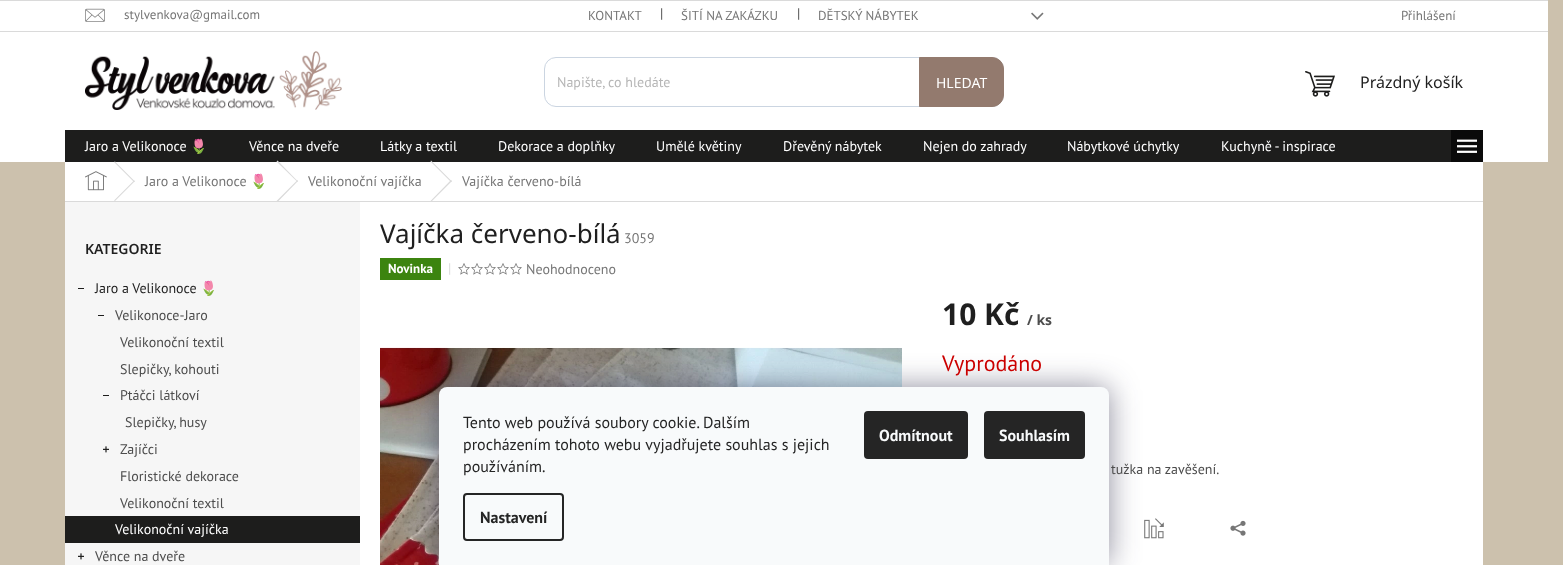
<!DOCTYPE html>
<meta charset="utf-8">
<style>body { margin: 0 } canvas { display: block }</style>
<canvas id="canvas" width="1563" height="565"></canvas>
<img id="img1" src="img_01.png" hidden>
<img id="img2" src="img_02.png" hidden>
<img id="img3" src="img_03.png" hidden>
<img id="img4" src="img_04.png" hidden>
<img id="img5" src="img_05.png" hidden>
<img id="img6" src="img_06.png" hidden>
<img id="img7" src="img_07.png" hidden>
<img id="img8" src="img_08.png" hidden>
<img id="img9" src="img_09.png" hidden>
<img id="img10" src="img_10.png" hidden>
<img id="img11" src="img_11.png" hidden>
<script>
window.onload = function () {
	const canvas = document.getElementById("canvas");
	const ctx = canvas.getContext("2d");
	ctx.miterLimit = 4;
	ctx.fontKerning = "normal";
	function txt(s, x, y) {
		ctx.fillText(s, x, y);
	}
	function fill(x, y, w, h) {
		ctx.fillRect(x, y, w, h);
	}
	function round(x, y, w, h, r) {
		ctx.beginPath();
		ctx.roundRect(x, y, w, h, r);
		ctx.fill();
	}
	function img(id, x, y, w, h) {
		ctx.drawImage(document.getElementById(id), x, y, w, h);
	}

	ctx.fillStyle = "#CCC1AD";
	fill(0, 0, 1563, 565);
	ctx.fillStyle = "#FFFFFF";
	fill(0, 1, 1548, 30);
	ctx.fillStyle = "#DADADA";
	fill(0, 0, 1548, 1);
	fill(0, 31, 1548, 1);
	img("img1", 85, 8, 20, 14);
	img("img2", 1031, 12, 13, 8);
	ctx.fillStyle = "#FFFFFF";
	fill(0, 32, 1548, 130);
	img("img3", 85, 51, 257, 59);
	ctx.beginPath();
	ctx.roundRect(544.5, 57.5, 459, 49, 11.5);
	ctx.strokeStyle = "#CBD5E1";
	ctx.stroke();
	ctx.fillStyle = "#937A6E";
	ctx.beginPath();
	ctx.roundRect(919.5, 57.5, 84, 49, [0, 11.5, 11.5, 0]);
	ctx.fill();
	ctx.strokeStyle = "#937A6E";
	ctx.stroke();
	img("img4", 1305, 71, 30, 26);
	ctx.fillStyle = "#1D1D1C";
	fill(65, 130, 1386, 32);
	ctx.fillStyle = "#0A0A0A";
	fill(1451, 130, 32, 32);
	img("img5", 1457, 139, 20, 14);
	ctx.fillStyle = "#FFFFFF";
	fill(65, 162, 1418, 39);
	ctx.fillStyle = "#DADADA";
	fill(65, 201, 1418, 1);
	img("img6", 85, 171, 22, 20);
	ctx.beginPath();
	ctx.moveTo(114, 162);
	ctx.lineTo(115, 161.5);
	ctx.lineTo(135, 181.5);
	ctx.lineTo(134, 182);
	ctx.closePath();
	ctx.fill();
	ctx.beginPath();
	ctx.moveTo(134, 180.5);
	ctx.lineTo(135, 181);
	ctx.lineTo(115, 201);
	ctx.lineTo(114, 200.5);
	ctx.closePath();
	ctx.fill();
	ctx.beginPath();
	ctx.moveTo(276.5, 161.5);
	ctx.lineTo(277.5, 160.5);
	ctx.lineTo(298, 181.5);
	ctx.lineTo(297.5, 182);
	ctx.closePath();
	ctx.fill();
	ctx.beginPath();
	ctx.moveTo(297.5, 180);
	ctx.lineTo(298, 181);
	ctx.lineTo(277.5, 202);
	ctx.lineTo(276.5, 201);
	ctx.closePath();
	ctx.fill();
	ctx.beginPath();
	ctx.moveTo(430.5, 161.5);
	ctx.lineTo(431, 160.5);
	ctx.lineTo(452, 181.5);
	ctx.lineTo(451, 182);
	ctx.closePath();
	ctx.fill();
	ctx.beginPath();
	ctx.moveTo(451, 180);
	ctx.lineTo(452, 181);
	ctx.lineTo(431, 202);
	ctx.lineTo(430.5, 201);
	ctx.closePath();
	ctx.fill();
	ctx.fillStyle = "#FFFFFF";
	fill(360, 202, 1123, 363);
	ctx.fillStyle = "#F6F6F6";
	fill(65, 202, 295, 363);
	ctx.fillStyle = "#1D1D1C";
	fill(78, 288, 6, 1);
	fill(98, 315, 6, 1);
	fill(103, 395, 6, 1);
	img("img7", 103, 446, 6, 7);
	fill(65, 516, 295, 27);
	img("img7", 78, 553, 6, 7);
	ctx.fillStyle = "#3C840F";
	fill(380, 258, 61, 22);
	img("img8", 458, 263, 12, 12);
	img("img8", 471, 263, 12, 12);
	img("img8", 484, 263, 12, 12);
	img("img8", 497, 263, 12, 12);
	img("img8", 510, 263, 12, 12);
	img("img9", 380, 347, 522, 218);
	img("img10", 1144, 518, 20, 21);
	img("img11", 1230, 520, 16, 16);
	ctx.fillStyle = "rgba(27, 25, 57, 0.5)";
	ctx.filter = "blur(15px)";
	ctx.beginPath();
	ctx.roundRect(439, 387, 670, 178, 8);
	ctx.fill();
	ctx.filter = "none";
	ctx.fillStyle = "#F8FAFB";
	ctx.beginPath();
	ctx.roundRect(439, 387, 670, 178, [8, 8, 0, 0]);
	ctx.fill();
	ctx.beginPath();
	ctx.roundRect(464, 494, 99, 46, 3);
	ctx.strokeStyle = "#252525";
	ctx.lineWidth = 2;
	ctx.stroke();
	ctx.fillStyle = "#252525";
	round(864, 411, 104, 48, 4);
	round(984, 411, 101, 48, 4);
	ctx.font = "13px PT Sans";
	ctx.fillStyle = "#767676";
	txt("stylvenkova@gmail.com", 124, 19);
	txt("KONTAKT", 588, 20);
	ctx.font = "14px PT Sans";
	ctx.fillStyle = "#4D4D4D";
	txt("|", 660, 18);
	ctx.font = "13px PT Sans";
	ctx.fillStyle = "#767676";
	txt("ŠITÍ NA ZAKÁZKU", 681, 20);
	ctx.font = "14px PT Sans";
	ctx.fillStyle = "#4D4D4D";
	txt("|", 797, 18);
	ctx.font = "13px PT Sans";
	ctx.fillStyle = "#767676";
	txt("DĚTSKÝ NÁBYTEK", 818, 20);
	txt("Přihlášení", 1401, 20);
	ctx.font = "14px PT Sans";
	ctx.fillStyle = "#B6B6B6";
	txt("Napište, co hledáte", 557, 87);
	ctx.font = "14px Noto Sans";
	ctx.fillStyle = "#FFFFFF";
	txt("HLEDAT", 936, 88);
	ctx.font = "16px Noto Sans";
	ctx.fillStyle = "#1F1F1F";
	txt("Prázdný košík", 1360, 88);
	ctx.font = "14px PT Sans";
	ctx.fillStyle = "#FFFFFF";
	txt("Jaro a Velikonoce", 85, 151);
	ctx.font = "14px Noto Color Emoji";
	txt("🌷", 190, 151);
	ctx.font = "14px PT Sans";
	txt("Věnce na dveře", 249, 151);
	txt("Látky a textil", 380, 151);
	txt("Dekorace a doplňky", 498, 151);
	txt("Umělé květiny", 656, 151);
	txt("Dřevěný nábytek", 783, 151);
	txt("Nejen do zahrady", 923, 151);
	txt("Nábytkové úchytky", 1067, 151);
	txt("Kuchyně - inspirace", 1221, 151);
	ctx.fillStyle = "#767676";
	txt("Jaro a Velikonoce", 145, 186);
	ctx.font = "14px Noto Color Emoji";
	txt("🌷", 250, 186);
	ctx.font = "14px PT Sans";
	txt("Velikonoční vajíčka", 308, 186);
	txt("Vajíčka červeno-bílá", 462, 186);
	ctx.font = "600 14px Noto Sans";
	ctx.fillStyle = "#1F1F1F";
	txt("KATEGORIE", 85, 254);
	ctx.font = "14px PT Sans";
	txt("Jaro a Velikonoce", 95, 293);
	ctx.font = "14px Noto Color Emoji";
	txt("🌷", 200, 293);
	ctx.font = "14px PT Sans";
	ctx.fillStyle = "#4D4D4D";
	txt("Velikonoce-Jaro", 115, 320);
	txt("Velikonoční textil", 120, 347);
	txt("Slepičky, kohouti", 120, 374);
	txt("Ptáčci látkoví", 120, 400);
	txt("Slepičky, husy", 125, 427);
	txt("Zajíčci", 120, 454);
	txt("Floristické dekorace", 120, 481);
	txt("Velikonoční textil", 120, 508);
	ctx.fillStyle = "#FFFFFF";
	txt("Velikonoční vajíčka", 115, 534);
	ctx.fillStyle = "#4D4D4D";
	txt("Věnce na dveře", 95, 561);
	ctx.font = "26px Noto Sans";
	ctx.fillStyle = "#1F1F1F";
	txt("Vajíčka červeno-bílá", 380, 243);
	ctx.font = "14px PT Sans";
	ctx.fillStyle = "#767676";
	txt("3059", 624, 243);
	ctx.font = "bold 13px PT Sans";
	ctx.fillStyle = "#FFFFFF";
	txt("Novinka", 388, 273);
	ctx.font = "14px PT Sans";
	ctx.fillStyle = "#DADADA";
	txt("|", 448, 273);
	ctx.fillStyle = "#767676";
	txt("Neohodnoceno", 526, 274);
	ctx.font = "bold 30px Noto Sans";
	ctx.fillStyle = "#1F1F1F";
	txt("10 Kč", 942, 325);
	ctx.font = "bold 14px Noto Sans";
	ctx.fillStyle = "#4D4D4D";
	txt("/ ks", 1027, 325);
	ctx.font = "22px PT Sans";
	ctx.fillStyle = "#CB0000";
	txt("Vyprodáno", 942, 371);
	ctx.font = "14px PT Sans";
	ctx.fillStyle = "#4D4D4D";
	txt("tužka na zavěšení.", 1111, 474);
	ctx.font = "16px PT Sans";
	ctx.fillStyle = "#252525";
	txt("Tento web používá soubory cookie. Dalším", 463, 428);
	txt("procházením tohoto webu vyjadřujete souhlas s jejich", 463, 450);
	txt("používáním.", 463, 472);
	ctx.font = "bold 16px PT Sans";
	txt("Nastavení", 480, 523);
	ctx.fillStyle = "#F8FAFB";
	txt("Odmítnout", 879, 441);
	txt("Souhlasím", 999, 441);
};
</script>
